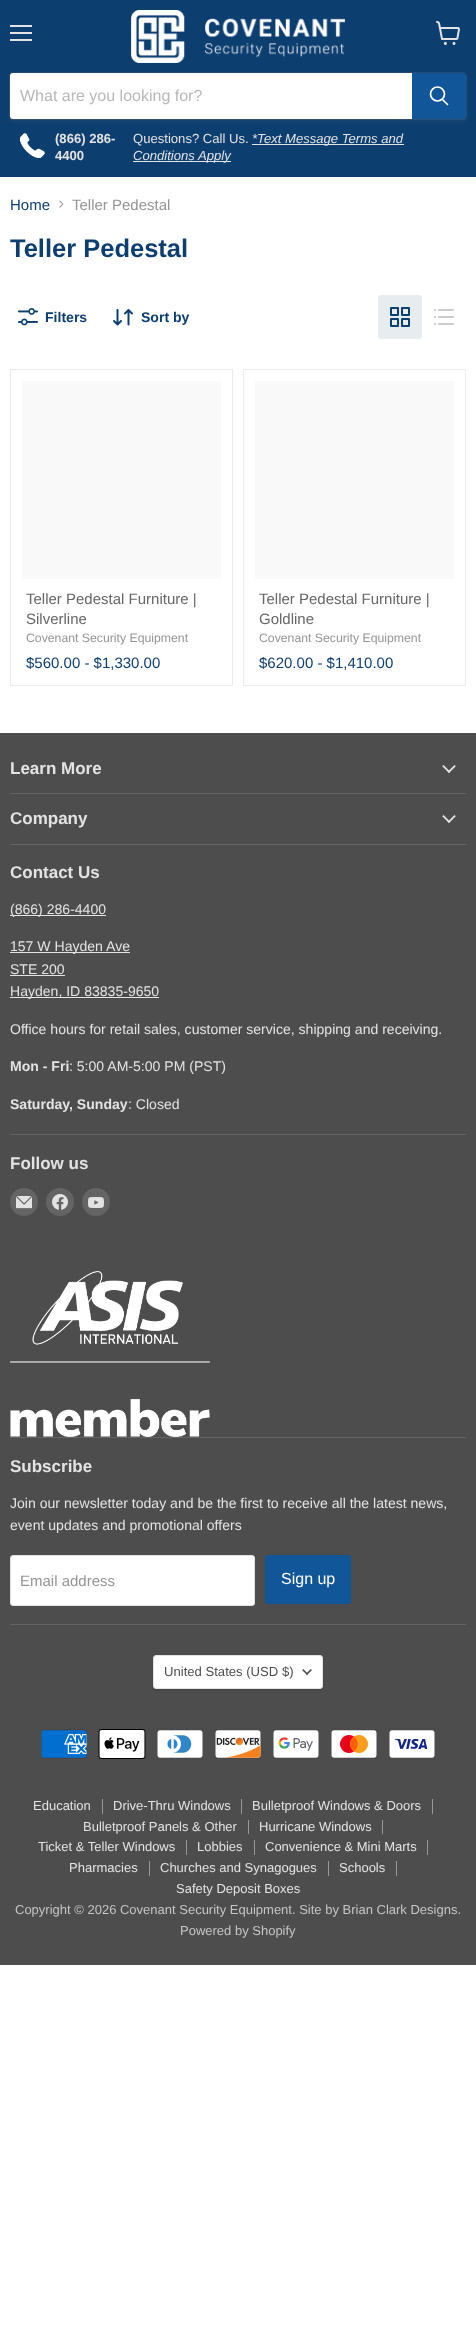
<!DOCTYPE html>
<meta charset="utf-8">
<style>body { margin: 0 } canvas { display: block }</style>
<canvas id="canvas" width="476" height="2338"></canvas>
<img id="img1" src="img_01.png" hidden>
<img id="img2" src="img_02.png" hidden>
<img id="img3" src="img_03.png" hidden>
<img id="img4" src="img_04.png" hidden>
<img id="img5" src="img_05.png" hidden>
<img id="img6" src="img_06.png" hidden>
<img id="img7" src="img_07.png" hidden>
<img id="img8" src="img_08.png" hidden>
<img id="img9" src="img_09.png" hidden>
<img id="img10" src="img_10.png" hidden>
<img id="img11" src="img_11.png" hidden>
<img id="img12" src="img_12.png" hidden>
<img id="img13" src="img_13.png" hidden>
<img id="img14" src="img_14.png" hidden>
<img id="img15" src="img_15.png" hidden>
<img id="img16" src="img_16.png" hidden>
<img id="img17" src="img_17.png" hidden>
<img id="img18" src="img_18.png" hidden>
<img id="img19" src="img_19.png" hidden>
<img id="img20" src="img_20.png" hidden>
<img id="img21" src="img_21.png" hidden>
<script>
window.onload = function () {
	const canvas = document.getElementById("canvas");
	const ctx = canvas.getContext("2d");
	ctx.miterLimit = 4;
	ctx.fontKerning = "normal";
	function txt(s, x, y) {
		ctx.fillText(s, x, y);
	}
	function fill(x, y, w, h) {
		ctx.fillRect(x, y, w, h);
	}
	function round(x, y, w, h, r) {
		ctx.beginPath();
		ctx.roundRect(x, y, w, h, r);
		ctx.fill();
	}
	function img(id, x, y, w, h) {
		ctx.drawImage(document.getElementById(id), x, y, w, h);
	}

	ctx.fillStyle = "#FFFFFF";
	fill(0, 0, 476, 2338);
	ctx.fillStyle = "#0D3E70";
	fill(0, 0, 476, 177);
	ctx.fillStyle = "#E3E3E3";
	fill(10, 25, 22, 2);
	fill(10, 32, 22, 2);
	fill(10, 39, 22, 2);
	img("img1", 436, 21, 24, 24);
	img("img2", 131, 10, 214, 53);
	ctx.fillStyle = "rgba(128, 128, 128, 0.11)";
	ctx.filter = "blur(1.5px)";
	ctx.beginPath();
	ctx.roundRect(9, 74, 458, 48, 4);
	ctx.fill();
	ctx.filter = "none";
	ctx.beginPath();
	ctx.roundRect(9.5, 72.5, 457, 47, 3.5);
	ctx.strokeStyle = "rgba(128, 128, 128, 0.2)";
	ctx.stroke();
	ctx.fillStyle = "#FFFFFF";
	ctx.beginPath();
	ctx.roundRect(10, 73, 402, 46, [3, 0, 0, 3]);
	ctx.fill();
	ctx.fillStyle = "#12569A";
	ctx.beginPath();
	ctx.roundRect(412.5, 73.5, 53, 45, [0, 2.5, 2.5, 0]);
	ctx.fill();
	ctx.strokeStyle = "#12569A";
	ctx.stroke();
	ctx.beginPath();
	ctx.moveTo(447.5, 104.5);
	ctx.lineTo(442.5, 99.5);
	ctx.strokeStyle = "#FFFFFF";
	ctx.lineWidth = 1.7;
	ctx.lineCap = "round";
	ctx.stroke();
	ctx.beginPath();
	ctx.arc(437.5, 94, 7, 0, Math.PI * 2);
	ctx.stroke();
	img("img3", 20, 133, 25, 25);
	ctx.fillStyle = "#E3E3E3";
	fill(252, 144, 152, 1);
	fill(133, 161, 98, 1);
	img("img4", 59, 200, 5, 8);
	img("img5", 18, 308, 20, 18);
	img("img6", 113, 309, 20, 17);
	ctx.fillStyle = "#E7ECF1";
	round(378, 295, 44, 44, 3);
	img("img7", 390, 307, 20, 20);
	img("img8", 434, 309, 20, 16);
	ctx.strokeStyle = "#EBEBEB";
	ctx.lineWidth = 1;
	ctx.strokeRect(10.5, 369.5, 222, 316);
	ctx.fillStyle = "#F9F9F9";
	fill(22, 381, 199, 198);
	ctx.strokeRect(243.5, 369.5, 222, 316);
	fill(255, 381, 199, 198);
	ctx.fillStyle = "#4D4D4D";
	fill(0, 733, 476, 1232);
	ctx.fillStyle = "#646464";
	fill(10, 793, 456, 1);
	img("img9", 442, 765, 14, 8);
	fill(10, 844, 456, 1);
	img("img9", 442, 815, 14, 8);
	fill(10, 1134, 456, 1);
	ctx.fillStyle = "#E3E3E3";
	fill(10, 915, 96, 1);
	fill(10, 952, 120, 1);
	fill(10, 975, 55, 1);
	fill(10, 997, 149, 1);
	ctx.fillStyle = "#646464";
	fill(10, 1437, 456, 1);
	ctx.beginPath();
	ctx.arc(24, 1202, 14, 0, Math.PI * 2);
	ctx.fill();
	img("img10", 16, 1196, 16, 13);
	ctx.beginPath();
	ctx.arc(60, 1202, 14, 0, Math.PI * 2);
	ctx.fill();
	img("img11", 52, 1194, 16, 16);
	ctx.beginPath();
	ctx.arc(96, 1202, 14, 0, Math.PI * 2);
	ctx.fill();
	img("img12", 88, 1197, 16, 11);
	img("img13", 10, 1271, 200, 166);
	fill(10, 1624, 456, 1);
	ctx.fillStyle = "#FFFFFF";
	ctx.beginPath();
	ctx.roundRect(10.5, 1555.5, 244, 50, 2.5);
	ctx.fill();
	ctx.strokeStyle = "#E3E3E3";
	ctx.stroke();
	ctx.fillStyle = "#12569A";
	ctx.beginPath();
	ctx.roundRect(265.5, 1555.5, 85, 48, 2.5);
	ctx.fill();
	ctx.strokeStyle = "#12569A";
	ctx.stroke();
	ctx.fillStyle = "rgba(0, 0, 0, 0.15)";
	ctx.filter = "blur(1px)";
	ctx.beginPath();
	ctx.roundRect(153, 1656, 170, 34, 3);
	ctx.fill();
	ctx.filter = "none";
	ctx.fillStyle = "#FFFFFF";
	ctx.beginPath();
	ctx.roundRect(153.5, 1655.5, 169, 33, 2.5);
	ctx.fill();
	ctx.strokeStyle = "#E3E3E3";
	ctx.stroke();
	img("img14", 302, 1669, 10, 6);
	img("img15", 41, 1729, 46, 30);
	img("img16", 98, 1729, 48, 30);
	img("img17", 157, 1729, 46, 30);
	img("img18", 215, 1729, 46, 30);
	img("img19", 273, 1729, 46, 30);
	img("img20", 331, 1729, 46, 30);
	img("img21", 389, 1729, 46, 30);
	ctx.fillStyle = "#989898";
	fill(102, 1799, 1, 15);
	fill(241, 1799, 1, 15);
	fill(432, 1799, 1, 15);
	fill(248, 1820, 1, 14);
	fill(382, 1820, 1, 14);
	fill(186, 1840, 1, 15);
	fill(254, 1840, 1, 15);
	fill(427, 1840, 1, 15);
	fill(149, 1861, 1, 15);
	fill(328, 1861, 1, 15);
	fill(396, 1861, 1, 15);
	ctx.font = "16px Liberation Sans";
	ctx.fillStyle = "#B8B8B8";
	txt("What are you looking for?", 20, 101);
	ctx.font = "bold 13.1px Liberation Sans";
	ctx.fillStyle = "#E3E3E3";
	txt("(866) 286-", 55, 143);
	txt("4400", 55, 160);
	ctx.font = "13.1px Liberation Sans";
	txt("Questions? Call Us.", 133, 143);
	ctx.font = "italic 13.1px Liberation Sans";
	txt("*Text Message Terms and", 252, 143);
	txt("Conditions Apply", 133, 160);
	ctx.font = "15px Liberation Sans";
	ctx.fillStyle = "#0D3E70";
	txt("Home", 10, 210);
	ctx.fillStyle = "#949494";
	txt("Teller Pedestal", 72, 210);
	ctx.font = "bold 25.5px Liberation Sans";
	ctx.fillStyle = "#0D3E70";
	txt("Teller Pedestal", 10, 257);
	ctx.font = "bold 14.05px Liberation Sans";
	txt("Filters", 45, 322);
	txt("Sort by", 141, 322);
	ctx.font = "15px Liberation Sans";
	ctx.fillStyle = "#666666";
	txt("Teller Pedestal Furniture |", 26, 604);
	txt("Silverline", 26, 624);
	ctx.font = "12.25px Liberation Sans";
	ctx.fillStyle = "#949494";
	txt("Covenant Security Equipment", 26, 642);
	ctx.font = "15px Liberation Sans";
	ctx.fillStyle = "#0D3E70";
	txt("$560.00 - $1,330.00", 26, 668);
	ctx.fillStyle = "#666666";
	txt("Teller Pedestal Furniture |", 259, 604);
	txt("Goldline", 259, 624);
	ctx.font = "12.25px Liberation Sans";
	ctx.fillStyle = "#949494";
	txt("Covenant Security Equipment", 259, 642);
	ctx.font = "15px Liberation Sans";
	ctx.fillStyle = "#0D3E70";
	txt("$620.00 - $1,410.00", 259, 668);
	ctx.font = "bold 17px Liberation Sans";
	ctx.fillStyle = "#E3E3E3";
	txt("Learn More", 10, 774);
	txt("Company", 10, 824);
	txt("Contact Us", 10, 878);
	ctx.font = "14.05px Liberation Sans";
	txt("(866) 286-4400", 10, 914);
	txt("157 W Hayden Ave", 10, 951);
	txt("STE 200", 10, 974);
	txt("Hayden, ID 83835-9650", 10, 996);
	txt("Office hours for retail sales, customer service, shipping and receiving.", 10, 1034);
	ctx.font = "bold 14.05px Liberation Sans";
	txt("Mon - Fri", 10, 1071);
	ctx.font = "14.05px Liberation Sans";
	txt(": 5:00 AM-5:00 PM (PST)", 69, 1071);
	ctx.font = "bold 14.05px Liberation Sans";
	txt("Saturday, Sunday", 10, 1109);
	ctx.font = "14.05px Liberation Sans";
	txt(": Closed", 128, 1109);
	ctx.font = "bold 17px Liberation Sans";
	txt("Follow us", 10, 1169);
	txt("Subscribe", 10, 1472);
	ctx.font = "14.05px Liberation Sans";
	txt("Join our newsletter today and be the first to receive all the latest news,", 10, 1508);
	txt("event updates and promotional offers", 10, 1530);
	ctx.font = "15px Liberation Sans";
	ctx.fillStyle = "#949494";
	txt("Email address", 20, 1586);
	ctx.font = "16px Liberation Sans";
	ctx.fillStyle = "#FFFFFF";
	txt("Sign up", 281, 1584);
	ctx.font = "13.1px Liberation Sans";
	ctx.fillStyle = "#4D4D4D";
	txt("United States (USD $)", 164, 1676);
	ctx.font = "13px Liberation Sans";
	ctx.fillStyle = "#E3E3E3";
	txt("Education", 33, 1810);
	txt("Drive-Thru Windows", 113, 1810);
	txt("Bulletproof Windows & Doors", 252, 1810);
	txt("Bulletproof Panels & Other", 83, 1831);
	txt("Hurricane Windows", 259, 1831);
	txt("Ticket & Teller Windows", 38, 1851);
	txt("Lobbies", 197, 1851);
	txt("Convenience & Mini Marts", 265, 1851);
	txt("Pharmacies", 69, 1872);
	txt("Churches and Synagogues", 160, 1872);
	txt("Schools", 339, 1872);
	txt("Safety Deposit Boxes", 176, 1893);
	ctx.fillStyle = "#C5C5C5";
	txt("Copyright © 2026 Covenant Security Equipment. Site by Brian Clark Designs.", 15, 1914);
	txt("Powered by Shopify", 180, 1935);
};
</script>
